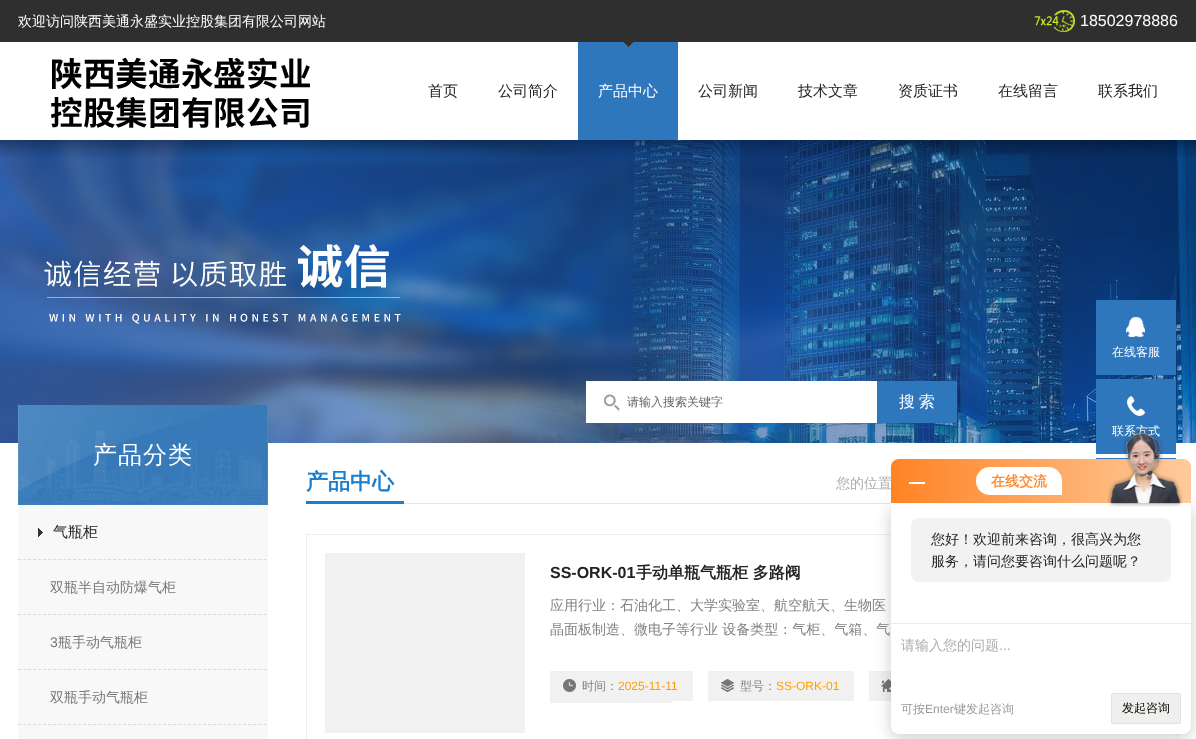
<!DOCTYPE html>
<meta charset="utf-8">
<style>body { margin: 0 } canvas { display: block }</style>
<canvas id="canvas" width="1196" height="739"></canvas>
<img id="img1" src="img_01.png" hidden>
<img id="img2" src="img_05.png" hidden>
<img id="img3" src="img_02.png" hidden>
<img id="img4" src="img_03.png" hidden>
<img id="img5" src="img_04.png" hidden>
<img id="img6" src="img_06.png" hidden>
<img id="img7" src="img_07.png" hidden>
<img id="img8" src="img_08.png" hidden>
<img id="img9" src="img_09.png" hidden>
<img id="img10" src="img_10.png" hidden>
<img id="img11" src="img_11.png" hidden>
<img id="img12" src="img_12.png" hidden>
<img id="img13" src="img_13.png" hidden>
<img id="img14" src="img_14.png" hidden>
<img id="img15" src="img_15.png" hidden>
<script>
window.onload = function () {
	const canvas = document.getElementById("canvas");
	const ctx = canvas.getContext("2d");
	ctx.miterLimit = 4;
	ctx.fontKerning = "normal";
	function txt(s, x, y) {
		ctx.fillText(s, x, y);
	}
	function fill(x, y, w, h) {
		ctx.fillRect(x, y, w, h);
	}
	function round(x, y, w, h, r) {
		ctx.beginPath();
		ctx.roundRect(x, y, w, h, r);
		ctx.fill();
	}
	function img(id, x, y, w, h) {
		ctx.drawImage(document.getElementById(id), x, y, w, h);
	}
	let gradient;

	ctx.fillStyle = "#FFFFFF";
	fill(0, 0, 1196, 739);
	ctx.fillStyle = "#2F2F2F";
	fill(0, 0, 1196, 42);
	img("img1", 1034, 10, 41, 22);
	img("img2", 0, 140, 1196, 303);
	img("img3", 0, 140, 1196, 17);
	img("img4", 51, 57, 259, 71);
	ctx.fillStyle = "#2F77BD";
	fill(578, 42, 100, 98);
	img("img5", 624, 42, 9, 5);
	ctx.fillStyle = "#FFFFFF";
	fill(586, 381, 291, 42);
	img("img6", 604, 392, 16, 20);
	ctx.fillStyle = "#2F77BD";
	fill(877, 381, 80, 42);
	fill(1096, 300, 80, 75);
	img("img7", 1126, 317, 19, 20);
	fill(1096, 379, 80, 75);
	img("img8", 1127, 396, 18, 20);
	fill(1096, 458, 80, 1);
	ctx.fillStyle = "#F8F8F8";
	fill(18, 505, 250, 234);
	img("img9", 18, 405, 250, 100);
	img("img10", 18, 559, 249, 1);
	img("img11", 38, 528, 5, 9);
	img("img10", 18, 614, 249, 1);
	img("img10", 18, 669, 249, 1);
	img("img10", 18, 724, 249, 1);
	ctx.fillStyle = "#E5E6E5";
	fill(404, 503, 487, 1);
	ctx.fillStyle = "#1A7ECE";
	fill(306, 501, 98, 3);
	ctx.strokeStyle = "#EEEEEE";
	ctx.strokeRect(306.5, 534.5, 871, 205);
	ctx.fillStyle = "#F1F1F1";
	fill(325, 553, 200, 180);
	fill(550, 671, 143, 30);
	img("img12", 563, 679, 13, 13);
	fill(708, 671, 146, 30);
	img("img13", 721, 679, 13, 13);
	fill(869, 671, 22, 30);
	img("img14", 881, 679, 10, 13);
	fill(550, 701, 122, 2);
	ctx.fillStyle = "rgba(0, 0, 0, 0.2)";
	ctx.filter = "blur(8px)";
	ctx.beginPath();
	ctx.roundRect(891, 507, 300, 231, 8);
	ctx.fill();
	ctx.filter = "none";
	ctx.fillStyle = "#FFFFFF";
	ctx.beginPath();
	ctx.roundRect(891, 503, 300, 231, [0, 0, 8, 8]);
	ctx.fill();
	ctx.fillStyle = "#F2F2F2";
	round(911, 518, 260, 64, 8);
	ctx.fillStyle = "#EAEAEA";
	fill(891, 623, 300, 1);
	ctx.fillStyle = "#F0EFED";
	ctx.beginPath();
	ctx.roundRect(1111.5, 693.5, 69, 30, 1.5);
	ctx.fill();
	ctx.strokeStyle = "#E2E2E2";
	ctx.stroke();
	ctx.font = "500 14px WenQuanYi Zen Hei";
	ctx.fillStyle = "#FFFFFF";
	txt("欢迎访问陕西美通永盛实业控股集团有限公司网站", 18, 26);
	ctx.font = "16px Liberation Sans";
	txt("18502978886", 1080, 26);
	ctx.font = "500 15px WenQuanYi Zen Hei";
	ctx.fillStyle = "#222322";
	txt("首页", 428, 96);
	txt("公司简介", 498, 96);
	ctx.fillStyle = "#FFFFFF";
	txt("产品中心", 598, 96);
	ctx.fillStyle = "#222322";
	txt("公司新闻", 698, 96);
	txt("技术文章", 798, 96);
	txt("资质证书", 898, 96);
	txt("在线留言", 998, 96);
	txt("联系我们", 1098, 96);
	ctx.font = "500 12px WenQuanYi Zen Hei";
	ctx.fillStyle = "#666666";
	txt("请输入搜索关键字", 627, 406);
	ctx.wordSpacing = "-1px";
	ctx.font = "500 16px WenQuanYi Zen Hei";
	ctx.fillStyle = "#FFFFFF";
	txt("搜 索", 899, 407);
	ctx.wordSpacing = "0px";
	ctx.font = "500 12px WenQuanYi Zen Hei";
	txt("在线客服", 1112, 356);
	txt("联系方式", 1112, 435);
	ctx.letterSpacing = "1px";
	ctx.font = "500 24px WenQuanYi Zen Hei";
	txt("产品分类", 93, 463);
	ctx.letterSpacing = "0px";
	ctx.font = "500 15px WenQuanYi Zen Hei";
	ctx.fillStyle = "#222322";
	txt("气瓶柜", 53, 537);
	ctx.font = "500 14px WenQuanYi Zen Hei";
	ctx.fillStyle = "#777777";
	txt("双瓶半自动防爆气柜", 50, 592);
	ctx.font = "14px Liberation Sans";
	txt("3", 50, 647);
	ctx.font = "500 14px WenQuanYi Zen Hei";
	txt("瓶手动气瓶柜", 58, 647);
	txt("双瓶手动气瓶柜", 50, 702);
	ctx.font = "bold 22px WenQuanYi Zen Hei";
	ctx.fillStyle = "#1A7ECE";
	txt("产品中心", 306, 489);
	ctx.font = "500 14px WenQuanYi Zen Hei";
	ctx.fillStyle = "#ADADAD";
	txt("您的位置", 836, 488);
	ctx.font = "bold 16px Liberation Sans";
	ctx.fillStyle = "#222322";
	txt("SS-ORK-01", 550, 578);
	ctx.font = "bold 16px WenQuanYi Zen Hei";
	txt("手动单瓶气瓶柜 多路阀", 636, 578);
	ctx.font = "500 14px WenQuanYi Zen Hei";
	ctx.fillStyle = "#828282";
	txt("应用行业：石油化工、大学实验室、航空航天、生物医", 550, 610);
	txt("晶面板制造、微电子等行业 设备类型：气柜、气箱、气", 550, 634);
	ctx.font = "500 12px WenQuanYi Zen Hei";
	txt("时间：", 582, 690);
	ctx.font = "12px Liberation Sans";
	ctx.fillStyle = "#FF9C00";
	txt("2025-11-11", 618, 690);
	ctx.font = "500 12px WenQuanYi Zen Hei";
	ctx.fillStyle = "#828282";
	txt("型号：", 740, 690);
	ctx.font = "12px Liberation Sans";
	ctx.fillStyle = "#FF9C00";
	txt("SS-ORK-01", 776, 690);
	gradient = ctx.createLinearGradient(891, 481, 1191, 481);
	gradient.addColorStop(0, "#FF8324");
	gradient.addColorStop(1, "#FECB9C");
	ctx.fillStyle = gradient;
	ctx.beginPath();
	ctx.roundRect(891, 459, 300, 44, [8, 8, 0, 0]);
	ctx.fill();
	ctx.fillStyle = "#FFFFFF";
	fill(909, 482, 16, 2);
	ctx.beginPath();
	ctx.roundRect(976, 467, 86, 28, [14, 14, 0, 14]);
	ctx.fill();
	ctx.font = "bold 14px WenQuanYi Zen Hei";
	ctx.fillStyle = "#FB8B36";
	txt("在线交流", 991, 486);
	img("img15", 1107, 429, 76, 78);
	ctx.font = "500 14px WenQuanYi Zen Hei";
	ctx.fillStyle = "#222322";
	txt("您好！欢迎前来咨询，很高兴为您", 931, 544);
	txt("服务，请问您要咨询什么问题呢？", 931, 566);
	ctx.fillStyle = "#ADADAD";
	txt("请输入您的问题", 901, 650);
	ctx.font = "14px Liberation Sans";
	txt("...", 999, 650);
	ctx.font = "500 12px WenQuanYi Zen Hei";
	ctx.fillStyle = "#999999";
	txt("可按", 901, 713);
	ctx.font = "12px Liberation Sans";
	txt("Enter", 925, 713);
	ctx.font = "500 12px WenQuanYi Zen Hei";
	txt("键发起咨询", 954, 713);
	ctx.fillStyle = "#000000";
	txt("发起咨询", 1122, 712);
};
</script>
